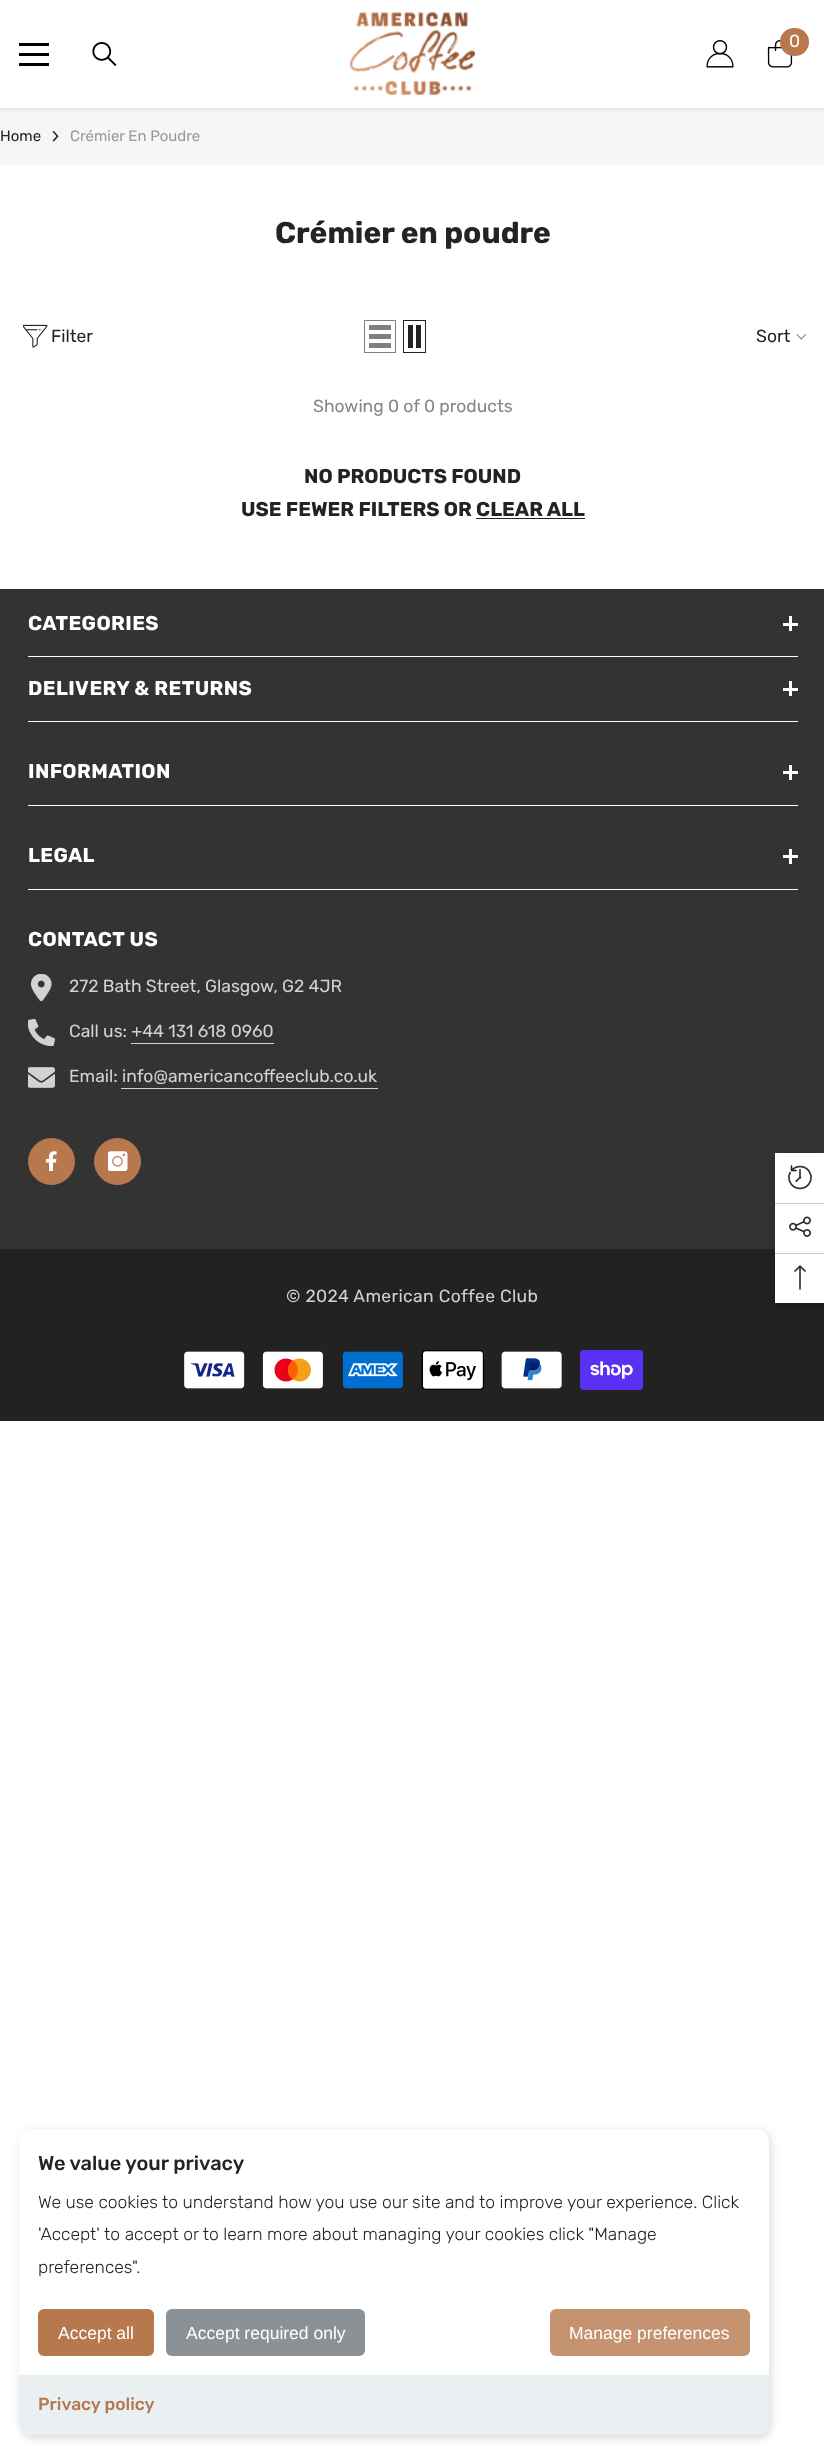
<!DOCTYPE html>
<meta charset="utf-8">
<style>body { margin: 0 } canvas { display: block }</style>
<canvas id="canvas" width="824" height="2453"></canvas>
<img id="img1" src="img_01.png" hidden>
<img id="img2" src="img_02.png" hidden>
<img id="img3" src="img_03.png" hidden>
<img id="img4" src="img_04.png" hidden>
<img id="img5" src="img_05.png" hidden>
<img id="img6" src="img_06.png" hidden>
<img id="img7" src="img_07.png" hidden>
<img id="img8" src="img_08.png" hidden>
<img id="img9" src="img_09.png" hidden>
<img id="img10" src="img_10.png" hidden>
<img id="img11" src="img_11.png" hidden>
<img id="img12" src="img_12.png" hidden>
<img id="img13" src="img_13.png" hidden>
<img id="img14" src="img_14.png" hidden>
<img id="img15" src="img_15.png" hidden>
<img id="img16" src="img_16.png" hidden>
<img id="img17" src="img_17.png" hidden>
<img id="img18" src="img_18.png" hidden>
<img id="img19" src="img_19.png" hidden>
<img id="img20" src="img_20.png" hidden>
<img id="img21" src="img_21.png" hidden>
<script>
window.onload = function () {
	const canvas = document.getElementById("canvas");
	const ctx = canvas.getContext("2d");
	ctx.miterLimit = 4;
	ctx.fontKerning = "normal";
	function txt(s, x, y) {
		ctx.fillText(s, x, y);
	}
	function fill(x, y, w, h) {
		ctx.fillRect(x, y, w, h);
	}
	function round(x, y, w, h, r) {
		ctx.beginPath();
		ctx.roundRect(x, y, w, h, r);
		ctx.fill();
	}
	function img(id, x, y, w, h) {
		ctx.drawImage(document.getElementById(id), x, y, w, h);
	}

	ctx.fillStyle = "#FFFFFF";
	fill(0, 0, 824, 2453);
	ctx.fillStyle = "#F6F6F6";
	fill(0, 108, 824, 57);
	ctx.fillStyle = "rgba(0, 0, 0, 0.1)";
	ctx.filter = "blur(2px)";
	ctx.beginPath();
	ctx.rect(0, 1, 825, 108);
	ctx.fill();
	ctx.filter = "none";
	ctx.fillStyle = "#FFFFFF";
	fill(0, 0, 824, 108);
	ctx.fillStyle = "#000000";
	fill(19, 53, 30, 3);
	fill(19, 43, 30, 3);
	fill(19, 63, 30, 3);
	img("img1", 92, 42, 25, 24);
	img("img2", 350, 12, 125, 83);
	img("img3", 706, 40, 28, 28);
	img("img4", 767, 40, 26, 28);
	ctx.fillStyle = "#B8784E";
	round(780, 28, 29, 28, 14);
	img("img5", 52, 131, 7, 11);
	img("img6", 23, 324, 25, 24);
	ctx.strokeStyle = "#808080";
	ctx.strokeRect(364.5, 320.5, 31, 32);
	ctx.fillStyle = "#808080";
	fill(369, 343, 22, 5);
	fill(369, 334, 22, 5);
	fill(369, 325, 22, 5);
	ctx.strokeStyle = "#232323";
	ctx.strokeRect(403.5, 320.5, 22, 32);
	ctx.fillStyle = "#232323";
	fill(416, 325, 5, 23);
	fill(408, 325, 5, 23);
	img("img7", 796, 334, 10, 6);
	fill(476, 518, 109, 1);
	ctx.fillStyle = "#333333";
	fill(0, 589, 824, 660);
	ctx.fillStyle = "#FFFFFF";
	fill(28, 656, 770, 1);
	fill(789, 616, 3, 15);
	fill(783, 623, 15, 3);
	fill(28, 721, 770, 1);
	fill(789, 681, 3, 15);
	fill(783, 688, 15, 3);
	fill(28, 805, 770, 1);
	fill(789, 765, 3, 15);
	fill(783, 771, 15, 3);
	fill(28, 889, 770, 1);
	fill(789, 849, 3, 15);
	fill(783, 855, 15, 3);
	img("img8", 30, 974, 22, 27);
	img("img9", 28, 1019, 27, 27);
	ctx.fillStyle = "#D1D2D3";
	fill(131, 1043, 143, 1);
	img("img10", 28, 1067, 27, 21);
	fill(121, 1088, 257, 1);
	ctx.fillStyle = "#B8784E";
	ctx.beginPath();
	ctx.arc(51.5, 1161.5, 23, 0, Math.PI * 2);
	ctx.fill();
	ctx.strokeStyle = "#B8784E";
	ctx.stroke();
	img("img11", 45, 1151, 12, 20);
	ctx.beginPath();
	ctx.arc(117.5, 1161.5, 23, 0, Math.PI * 2);
	ctx.fill();
	ctx.stroke();
	img("img12", 108, 1151, 20, 20);
	ctx.fillStyle = "#222222";
	fill(0, 1249, 824, 172);
	img("img13", 184, 1351, 61, 38);
	img("img14", 262, 1351, 61, 38);
	img("img15", 342, 1351, 61, 38);
	img("img16", 421, 1350, 63, 40);
	img("img17", 501, 1351, 61, 38);
	img("img18", 580, 1350, 63, 40);
	ctx.fillStyle = "rgba(0, 0, 0, 0.2)";
	ctx.filter = "blur(4.5px)";
	ctx.beginPath();
	ctx.rect(775, 1156, 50, 150);
	ctx.fill();
	ctx.filter = "none";
	ctx.fillStyle = "#FFFFFF";
	fill(775, 1153, 49, 150);
	img("img19", 788, 1165, 24, 25);
	ctx.fillStyle = "#CCCCCC";
	fill(775, 1203, 49, 1);
	img("img20", 789, 1216, 22, 21);
	fill(775, 1253, 49, 1);
	img("img21", 794, 1265, 12, 25);
	ctx.fillStyle = "rgba(0, 0, 0, 0.15)";
	ctx.filter = "blur(4px)";
	ctx.beginPath();
	ctx.roundRect(21, 2131, 750, 307, 13);
	ctx.fill();
	ctx.filter = "none";
	ctx.fillStyle = "#FFFFFF";
	round(19, 2129, 750, 306, 13);
	ctx.fillStyle = "#B8784E";
	round(38, 2309, 116, 47, 6);
	ctx.fillStyle = "#8A9297";
	round(166, 2309, 199, 47, 6);
	ctx.fillStyle = "#C69371";
	round(550, 2309, 200, 47, 6);
	ctx.fillStyle = "#EAEFF2";
	ctx.beginPath();
	ctx.roundRect(19, 2375, 750, 60, [0, 0, 13, 13]);
	ctx.fill();
	ctx.fillStyle = "#EEEEEE";
	fill(19, 2375, 750, 1);
	ctx.save();
	ctx.beginPath();
	ctx.roundRect(19, 2129, 750, 306, 13);
	ctx.clip();
	fill(19, 2434, 750, 1);
	ctx.restore();
	ctx.font = "17.5px Rubik";
	ctx.fillStyle = "#FFFFFF";
	txt("0", 789, 47);
	ctx.font = "15px Rubik";
	ctx.fillStyle = "#232323";
	txt("Home", 0, 141);
	ctx.fillStyle = "#999999";
	txt("Crémier En Poudre", 70, 141);
	ctx.font = "bold 30px Rubik";
	ctx.fillStyle = "#232323";
	txt("Crémier en poudre", 275, 243);
	ctx.font = "17.5px Rubik";
	txt("Filter", 51, 342);
	txt("Sort", 756, 342);
	ctx.fillStyle = "#868686";
	txt("Showing 0 of 0 products", 313, 412);
	ctx.font = "bold 20px Rubik";
	ctx.fillStyle = "#232323";
	txt("NO PRODUCTS FOUND", 304, 483);
	txt("USE FEWER FILTERS OR CLEAR ALL", 241, 516);
	ctx.letterSpacing = "0.4px";
	ctx.fillStyle = "#FFFFFF";
	txt("CATEGORIES", 28, 630);
	txt("DELIVERY & RETURNS", 28, 695);
	txt("INFORMATION", 28, 778);
	txt("LEGAL", 28, 862);
	txt("CONTACT US", 28, 946);
	ctx.letterSpacing = "0px";
	ctx.font = "17.5px Rubik";
	ctx.fillStyle = "#D1D2D3";
	txt("272 Bath Street, Glasgow, G2 4JR", 69, 992);
	txt("Call us: +44 131 618 0960", 69, 1037);
	txt("Email: info@americancoffeeclub.co.uk", 69, 1082);
	ctx.letterSpacing = "0.35px";
	txt("© 2024 American Coffee Club", 286, 1302);
	ctx.letterSpacing = "0px";
	ctx.font = "500 20px Rubik";
	ctx.fillStyle = "#232323";
	txt("We value your privacy", 38, 2170);
	ctx.font = "300 17.5px Rubik";
	txt("We use cookies to understand how you use our site and to improve your experience. Click", 38, 2208);
	txt("'Accept' to accept or to learn more about managing your cookies click \"Manage", 38, 2240);
	txt("preferences\".", 38, 2273);
	ctx.font = "17.5px Liberation Sans";
	ctx.fillStyle = "#FFFFFF";
	txt("Accept all", 58, 2339);
	txt("Accept required only", 186, 2339);
	txt("Manage preferences", 569, 2339);
	ctx.font = "500 17.5px Rubik";
	ctx.fillStyle = "#B8784E";
	txt("Privacy policy", 38, 2410);
};
</script>
